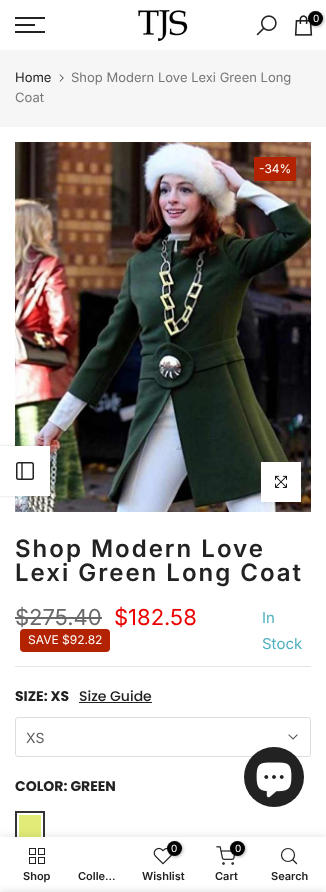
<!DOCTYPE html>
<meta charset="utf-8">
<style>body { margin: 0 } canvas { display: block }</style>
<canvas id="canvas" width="326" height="892"></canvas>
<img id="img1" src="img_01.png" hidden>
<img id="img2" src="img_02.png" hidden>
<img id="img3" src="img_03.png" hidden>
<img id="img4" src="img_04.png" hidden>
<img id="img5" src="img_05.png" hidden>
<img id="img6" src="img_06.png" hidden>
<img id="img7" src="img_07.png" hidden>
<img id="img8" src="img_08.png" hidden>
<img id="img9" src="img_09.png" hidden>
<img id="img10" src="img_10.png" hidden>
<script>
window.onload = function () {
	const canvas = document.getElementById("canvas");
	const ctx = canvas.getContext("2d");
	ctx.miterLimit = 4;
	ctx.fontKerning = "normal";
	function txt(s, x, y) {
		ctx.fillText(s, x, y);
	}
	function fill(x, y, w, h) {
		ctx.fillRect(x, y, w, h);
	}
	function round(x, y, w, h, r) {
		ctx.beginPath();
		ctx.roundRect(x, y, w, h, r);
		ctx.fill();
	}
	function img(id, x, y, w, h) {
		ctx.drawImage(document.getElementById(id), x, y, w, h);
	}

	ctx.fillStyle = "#FFFFFF";
	fill(0, 0, 326, 892);
	ctx.fillStyle = "#222222";
	fill(15, 17, 30, 2);
	fill(15, 24, 20, 2);
	fill(15, 31, 30, 2);
	img("img1", 138, 10, 50, 31);
	img("img2", 256, 15, 21, 21);
	img("img3", 294, 15, 19, 21);
	ctx.fillStyle = "rgba(0, 0, 0, 0.3)";
	ctx.filter = "blur(1.5px)";
	ctx.beginPath();
	ctx.roundRect(309, 12, 15, 15, 7.5);
	ctx.fill();
	ctx.filter = "none";
	ctx.fillStyle = "#000000";
	ctx.beginPath();
	ctx.arc(315.5, 18.5, 7.5, 0, Math.PI * 2);
	ctx.fill();
	ctx.fillStyle = "#F6F6F6";
	fill(0, 50, 326, 77);
	img("img4", 59, 74, 5, 8);
	img("img5", 15, 142, 296, 370);
	ctx.fillStyle = "#B42301";
	fill(254, 157, 42, 24);
	ctx.fillStyle = "rgba(0, 0, 0, 0.09)";
	ctx.filter = "blur(2.5px)";
	ctx.beginPath();
	ctx.rect(261, 462, 40, 40);
	ctx.fill();
	ctx.filter = "none";
	ctx.fillStyle = "#FFFFFF";
	fill(261, 462, 40, 40);
	img("img6", 275, 475, 12, 13);
	ctx.fillStyle = "#E5E5E5";
	fill(15, 666, 296, 1);
	ctx.fillStyle = "#696969";
	fill(15, 617, 87, 2);
	ctx.fillStyle = "#B42301";
	round(20, 629, 90, 23, 4);
	ctx.fillStyle = "#222222";
	fill(79, 702, 73, 1);
	ctx.beginPath();
	ctx.roundRect(15.5, 717.5, 295, 39, 2.5);
	ctx.strokeStyle = "#DDDDDD";
	ctx.stroke();
	ctx.beginPath();
	ctx.moveTo(297, 735);
	ctx.lineTo(293, 739);
	ctx.lineTo(289, 735);
	ctx.strokeStyle = "#5E5E5E";
	ctx.lineWidth = 1.1;
	ctx.lineCap = "square";
	ctx.stroke();
	ctx.fillStyle = "#E1EB78";
	fill(19, 815, 22, 22);
	ctx.strokeStyle = "#333333";
	ctx.lineWidth = 2;
	ctx.strokeRect(16, 812, 28, 28);
	ctx.fillStyle = "rgba(0, 0, 0, 0.15)";
	ctx.filter = "blur(1.5px)";
	ctx.beginPath();
	ctx.rect(0, 446, 50, 50);
	ctx.fill();
	ctx.filter = "none";
	ctx.fillStyle = "#FFFFFF";
	fill(0, 446, 50, 50);
	ctx.beginPath();
	ctx.roundRect(16.75, 462.75, 16.5, 16.5, 1.75);
	ctx.strokeStyle = "#222222";
	ctx.lineWidth = 1.5;
	ctx.stroke();
	ctx.beginPath();
	ctx.moveTo(22, 463);
	ctx.lineTo(22, 479);
	ctx.lineWidth = 1.4;
	ctx.lineCap = "round";
	ctx.lineJoin = "round";
	ctx.stroke();
	ctx.fillStyle = "#222222";
	ctx.beginPath();
	ctx.arc(274, 777, 30, 0, Math.PI * 2);
	ctx.fill();
	img("img7", 256, 762, 36, 36);
	ctx.fillStyle = "rgba(0, 0, 0, 0.12)";
	ctx.filter = "blur(4.5px)";
	ctx.beginPath();
	ctx.rect(0, 837, 326, 55);
	ctx.fill();
	ctx.filter = "none";
	ctx.fillStyle = "#FFFFFF";
	fill(0, 837, 326, 55);
	img("img8", 29, 848, 16, 16);
	img("img9", 153, 847, 19, 18);
	ctx.fillStyle = "rgba(0, 0, 0, 0.3)";
	ctx.filter = "blur(1.5px)";
	ctx.beginPath();
	ctx.roundRect(168, 842, 15, 15, 7.5);
	ctx.fill();
	ctx.filter = "none";
	ctx.fillStyle = "#000000";
	ctx.beginPath();
	ctx.arc(174.5, 848.5, 7.5, 0, Math.PI * 2);
	ctx.fill();
	img("img10", 216, 846, 19, 19);
	ctx.fillStyle = "rgba(0, 0, 0, 0.3)";
	ctx.filter = "blur(1.5px)";
	ctx.beginPath();
	ctx.roundRect(231, 842, 15, 15, 7.5);
	ctx.fill();
	ctx.filter = "none";
	ctx.fillStyle = "#000000";
	ctx.beginPath();
	ctx.arc(237.5, 848.5, 7.5, 0, Math.PI * 2);
	ctx.fill();
	ctx.beginPath();
	ctx.arc(288, 855, 6.5, 0, Math.PI * 2);
	ctx.lineWidth = 1.2;
	ctx.stroke();
	ctx.beginPath();
	ctx.moveTo(296.5, 863.5);
	ctx.lineTo(293, 860);
	ctx.stroke();
	ctx.fillStyle = "rgba(0, 0, 0, 0.14)";
	ctx.filter = "blur(4.5px)";
	ctx.beginPath();
	ctx.rect(0, 892, 326, 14);
	ctx.fill();
	ctx.filter = "none";
	ctx.font = "10px Inter";
	ctx.fillStyle = "#FFFFFF";
	txt("0", 313, 22);
	ctx.font = "13px Inter";
	ctx.fillStyle = "#222222";
	txt("Home", 15, 82);
	ctx.fillStyle = "#777777";
	txt("Shop Modern Love Lexi Green Long", 71, 82);
	txt("Coat", 15, 102);
	ctx.font = "12px Inter";
	ctx.fillStyle = "#FFFFFF";
	txt("-34%", 259, 173);
	ctx.letterSpacing = "2px";
	ctx.font = "600 24px Inter";
	ctx.fillStyle = "#222222";
	txt("Shop Modern Love", 15, 557);
	txt("Lexi Green Long Coat", 15, 581);
	ctx.letterSpacing = "0px";
	ctx.font = "22px Inter";
	ctx.fillStyle = "#696969";
	txt("$275.40", 15, 625);
	ctx.fillStyle = "#EC0101";
	txt("$182.58", 114, 625);
	ctx.font = "12px Inter";
	ctx.fillStyle = "#FFFFFF";
	txt("SAVE $92.82", 28, 644);
	ctx.font = "15px Inter";
	ctx.fillStyle = "#4EB0BE";
	txt("In", 262, 623);
	txt("Stock", 262, 649);
	ctx.font = "bold 14px Poppins";
	ctx.fillStyle = "#222222";
	txt("SIZE: XS", 15, 701);
	ctx.font = "500 14px Poppins";
	txt("Size Guide", 79, 701);
	ctx.font = "14px Inter";
	ctx.fillStyle = "#5E5E5E";
	txt("XS", 26, 743);
	ctx.font = "bold 14px Poppins";
	ctx.fillStyle = "#222222";
	txt("COLOR: GREEN", 15, 791);
	ctx.font = "600 11px Inter";
	txt("Shop", 23, 880);
	txt("Colle…", 78, 880);
	ctx.font = "10px Inter";
	ctx.fillStyle = "#FFFFFF";
	txt("0", 171, 852);
	ctx.font = "600 11px Inter";
	ctx.fillStyle = "#222222";
	txt("Wishlist", 142, 880);
	ctx.font = "10px Inter";
	ctx.fillStyle = "#FFFFFF";
	txt("0", 235, 852);
	ctx.font = "600 11px Inter";
	ctx.fillStyle = "#222222";
	txt("Cart", 215, 880);
	txt("Search", 271, 880);
};
</script>
